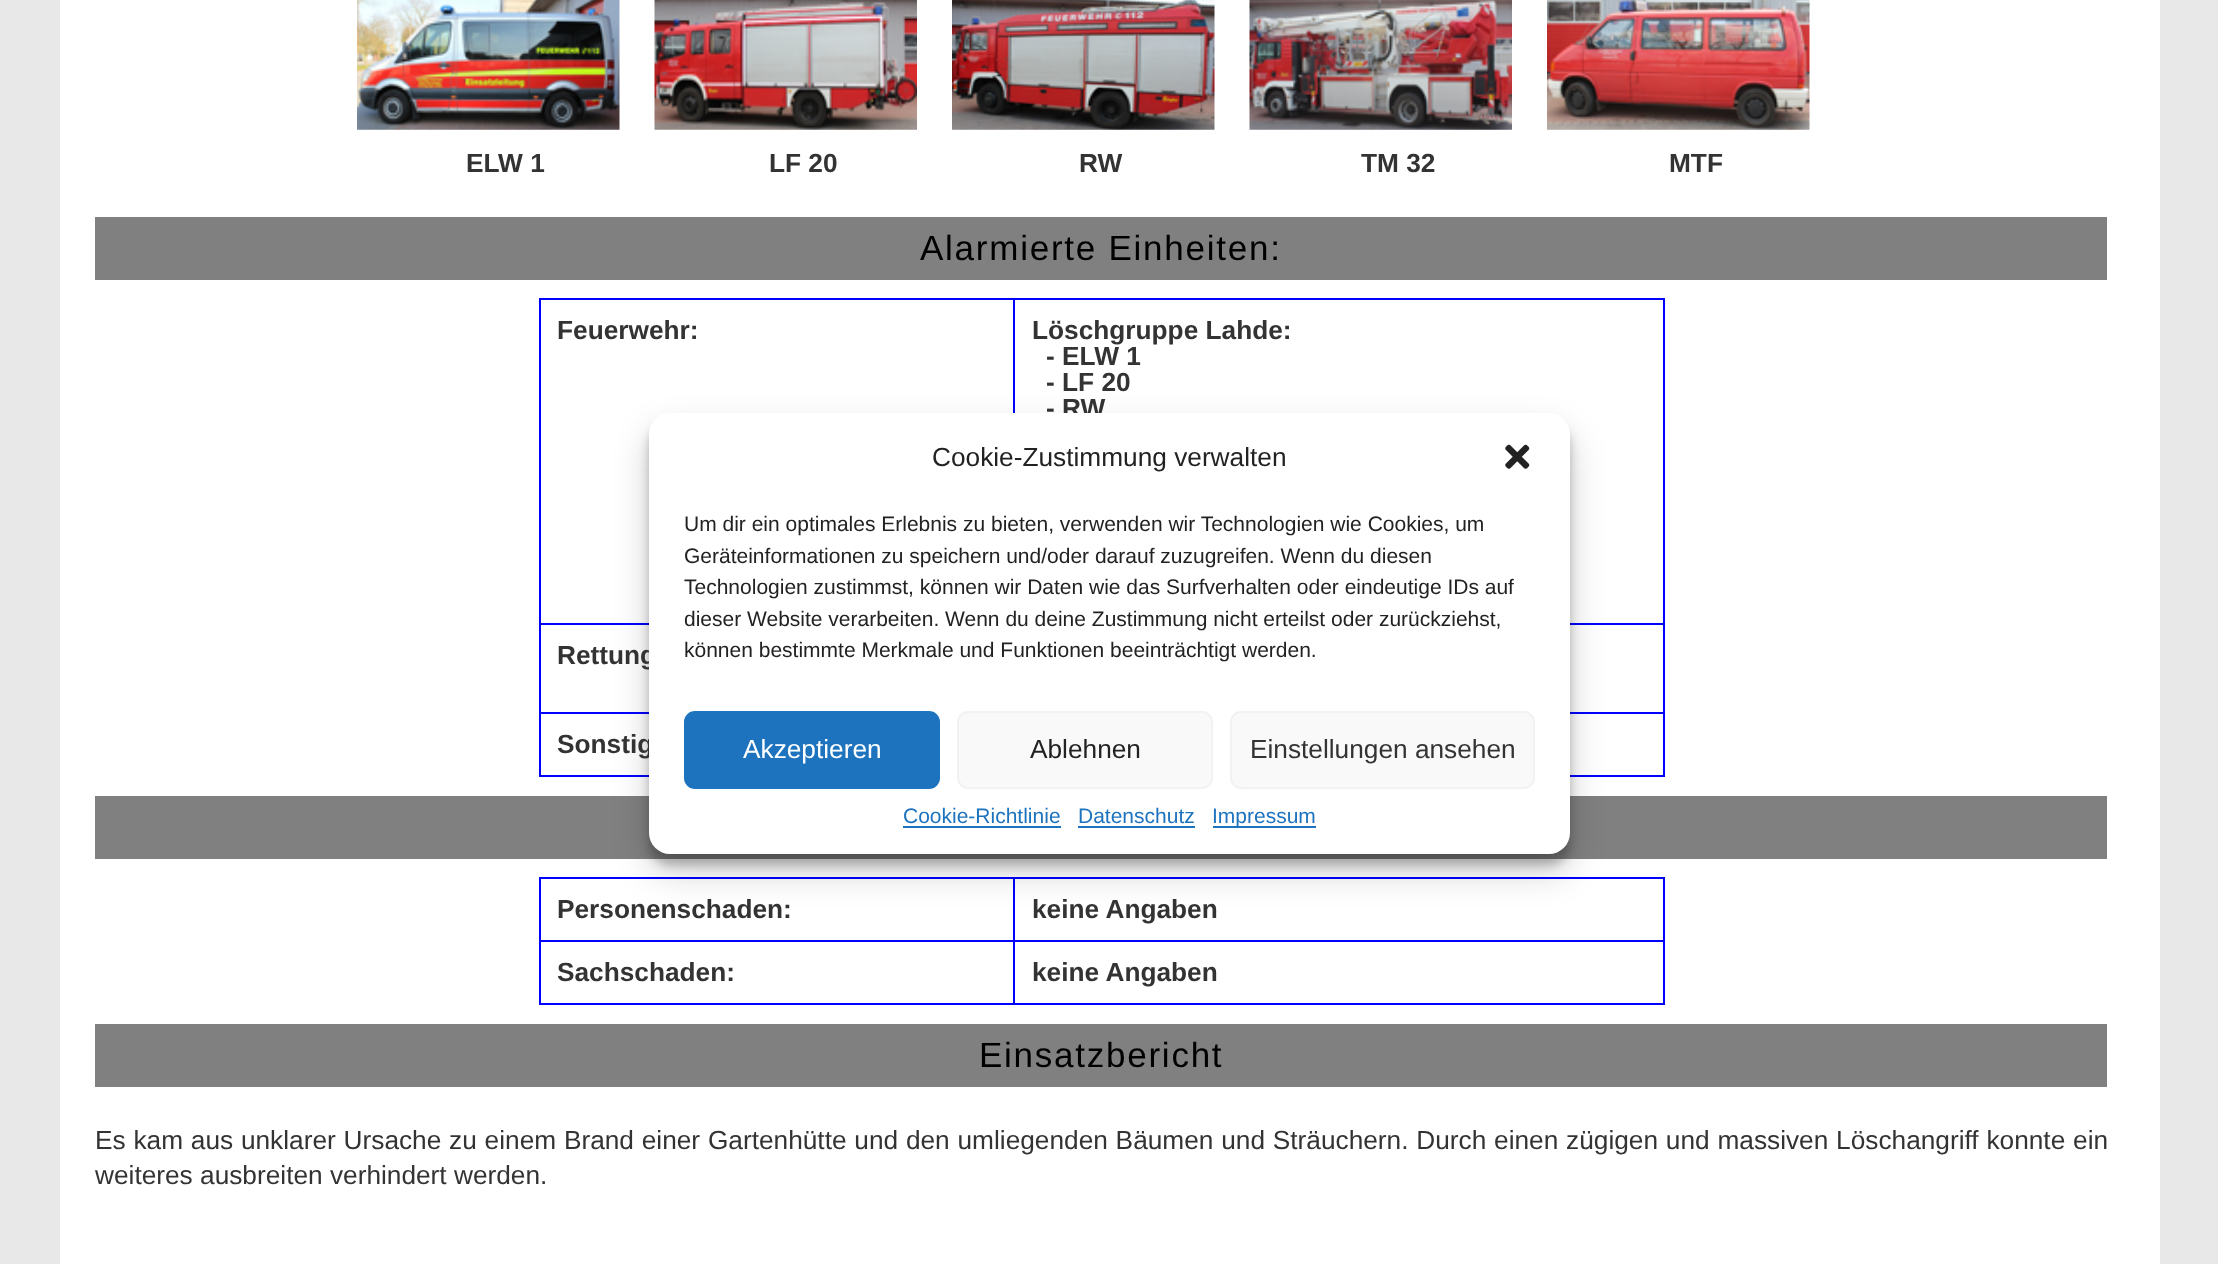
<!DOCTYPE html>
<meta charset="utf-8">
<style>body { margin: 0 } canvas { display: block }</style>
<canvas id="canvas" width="2218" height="1264"></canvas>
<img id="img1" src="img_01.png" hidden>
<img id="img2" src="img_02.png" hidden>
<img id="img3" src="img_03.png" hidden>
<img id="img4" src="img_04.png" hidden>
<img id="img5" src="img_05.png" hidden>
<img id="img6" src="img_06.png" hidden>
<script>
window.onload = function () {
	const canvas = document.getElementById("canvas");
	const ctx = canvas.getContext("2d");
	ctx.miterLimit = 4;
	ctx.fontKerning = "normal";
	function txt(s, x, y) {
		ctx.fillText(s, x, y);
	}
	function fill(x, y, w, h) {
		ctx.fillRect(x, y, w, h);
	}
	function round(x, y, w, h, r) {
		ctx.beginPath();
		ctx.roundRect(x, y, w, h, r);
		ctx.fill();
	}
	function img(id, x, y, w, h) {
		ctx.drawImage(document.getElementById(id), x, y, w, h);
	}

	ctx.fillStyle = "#E8E8E8";
	fill(0, 0, 2218, 1264);
	ctx.fillStyle = "#FFFFFF";
	fill(60, 0, 2100, 1264);
	img("img1", 357, 0, 263, 130);
	img("img2", 654, 0, 263, 130);
	img("img3", 952, 0, 263, 130);
	img("img4", 1249, 0, 263, 130);
	img("img5", 1547, 0, 263, 130);
	ctx.fillStyle = "#808080";
	fill(95, 217, 2012, 63);
	ctx.fillStyle = "#0000FF";
	fill(1013, 298, 651, 2);
	fill(1013, 298, 2, 115);
	fill(539, 298, 476, 2);
	fill(539, 623, 110, 2);
	fill(539, 712, 110, 2);
	fill(539, 775, 110, 2);
	fill(539, 712, 2, 65);
	fill(539, 623, 2, 91);
	fill(539, 298, 2, 327);
	fill(1570, 623, 94, 2);
	fill(1570, 712, 94, 2);
	fill(1663, 712, 2, 65);
	fill(1663, 623, 2, 91);
	fill(1663, 298, 2, 327);
	fill(1570, 775, 94, 2);
	ctx.fillStyle = "#808080";
	fill(95, 796, 2012, 63);
	ctx.fillStyle = "#0000FF";
	fill(1013, 877, 651, 2);
	fill(1013, 940, 651, 2);
	fill(1663, 940, 2, 65);
	fill(1013, 1003, 651, 2);
	fill(1013, 940, 2, 65);
	fill(539, 940, 476, 2);
	fill(1013, 877, 2, 65);
	fill(539, 877, 476, 2);
	fill(539, 1003, 476, 2);
	fill(539, 940, 2, 65);
	fill(539, 877, 2, 65);
	fill(1663, 877, 2, 65);
	ctx.fillStyle = "#808080";
	fill(95, 1024, 2012, 63);
	ctx.fillStyle = "rgba(0, 0, 0, 0.23)";
	ctx.filter = "blur(5px)";
	ctx.beginPath();
	ctx.roundRect(649, 424, 921, 441, 21);
	ctx.fill();
	ctx.filter = "none";
	ctx.fillStyle = "rgba(0, 0, 0, 0.19)";
	ctx.filter = "blur(17.5px)";
	ctx.beginPath();
	ctx.roundRect(649, 431, 921, 441, 21);
	ctx.fill();
	ctx.filter = "none";
	ctx.font = "bold 26.25px Liberation Sans";
	ctx.fillStyle = "#333333";
	txt("ELW 1", 466, 172);
	txt("LF 20", 769, 172);
	txt("RW", 1079, 172);
	txt("TM 32", 1361, 172);
	txt("MTF", 1669, 172);
	ctx.letterSpacing = "1.75px";
	ctx.font = "35px Liberation Sans";
	ctx.fillStyle = "#000000";
	txt("Alarmierte Einheiten:", 920, 260);
	ctx.letterSpacing = "0px";
	ctx.font = "bold 26.25px Liberation Sans";
	ctx.fillStyle = "#333333";
	txt("Feuerwehr:", 557, 339);
	txt("Löschgruppe Lahde:", 1032, 339);
	txt("- ELW 1", 1046, 365);
	txt("- LF 20", 1046, 391);
	txt("- RW", 1046, 417);
	txt("Rettung", 557, 664);
	txt("Sonstig", 557, 753);
	txt("Personenschaden:", 557, 918);
	txt("keine Angaben", 1032, 918);
	txt("Sachschaden:", 557, 981);
	txt("keine Angaben", 1032, 981);
	ctx.letterSpacing = "1.75px";
	ctx.font = "35px Liberation Sans";
	ctx.fillStyle = "#000000";
	txt("Einsatzbericht", 979, 1067);
	ctx.letterSpacing = "0px";
	ctx.wordSpacing = "0.5px";
	ctx.font = "26.25px Liberation Sans";
	ctx.fillStyle = "#333333";
	txt("Es kam aus unklarer Ursache zu einem Brand einer Gartenhütte und den umliegenden Bäumen und Sträuchern. Durch einen zügigen und massiven Löschangriff konnte ein", 95, 1149);
	ctx.wordSpacing = "0px";
	txt("weiteres ausbreiten verhindert werden.", 95, 1184);
	ctx.fillStyle = "#FFFFFF";
	round(649, 413, 921, 441, 21);
	ctx.fillStyle = "#222222";
	txt("Cookie-Zustimmung verwalten", 932, 466);
	img("img6", 1505, 444, 25, 25);
	ctx.font = "21px Liberation Sans";
	txt("Um dir ein optimales Erlebnis zu bieten, verwenden wir Technologien wie Cookies, um", 684, 531);
	txt("Geräteinformationen zu speichern und/oder darauf zuzugreifen. Wenn du diesen", 684, 563);
	txt("Technologien zustimmst, können wir Daten wie das Surfverhalten oder eindeutige IDs auf", 684, 594);
	txt("dieser Website verarbeiten. Wenn du deine Zustimmung nicht erteilst oder zurückziehst,", 684, 626);
	txt("können bestimmte Merkmale und Funktionen beeinträchtigt werden.", 684, 657);
	ctx.fillStyle = "#1E73BE";
	ctx.beginPath();
	ctx.roundRect(685, 712, 254, 76, 10);
	ctx.fill();
	ctx.strokeStyle = "#1E73BE";
	ctx.lineWidth = 2;
	ctx.stroke();
	ctx.font = "26.25px Liberation Sans";
	ctx.fillStyle = "#FFFFFF";
	txt("Akzeptieren", 743, 758);
	ctx.fillStyle = "#F9F9F9";
	ctx.beginPath();
	ctx.roundRect(958, 712, 254, 76, 10);
	ctx.fill();
	ctx.strokeStyle = "#F2F2F2";
	ctx.stroke();
	ctx.fillStyle = "#222222";
	txt("Ablehnen", 1030, 758);
	ctx.fillStyle = "#F9F9F9";
	ctx.beginPath();
	ctx.roundRect(1231, 712, 303, 76, 10);
	ctx.fill();
	ctx.stroke();
	ctx.fillStyle = "#333333";
	txt("Einstellungen ansehen", 1250, 758);
	ctx.font = "21px Liberation Sans";
	ctx.fillStyle = "#1E73BE";
	txt("Cookie-Richtlinie", 903, 823);
	fill(903, 826, 158, 2);
	txt("Datenschutz", 1078, 823);
	fill(1078, 826, 117, 2);
	fill(1213, 826, 103, 2);
	txt("Impressum", 1212, 823);
};
</script>
